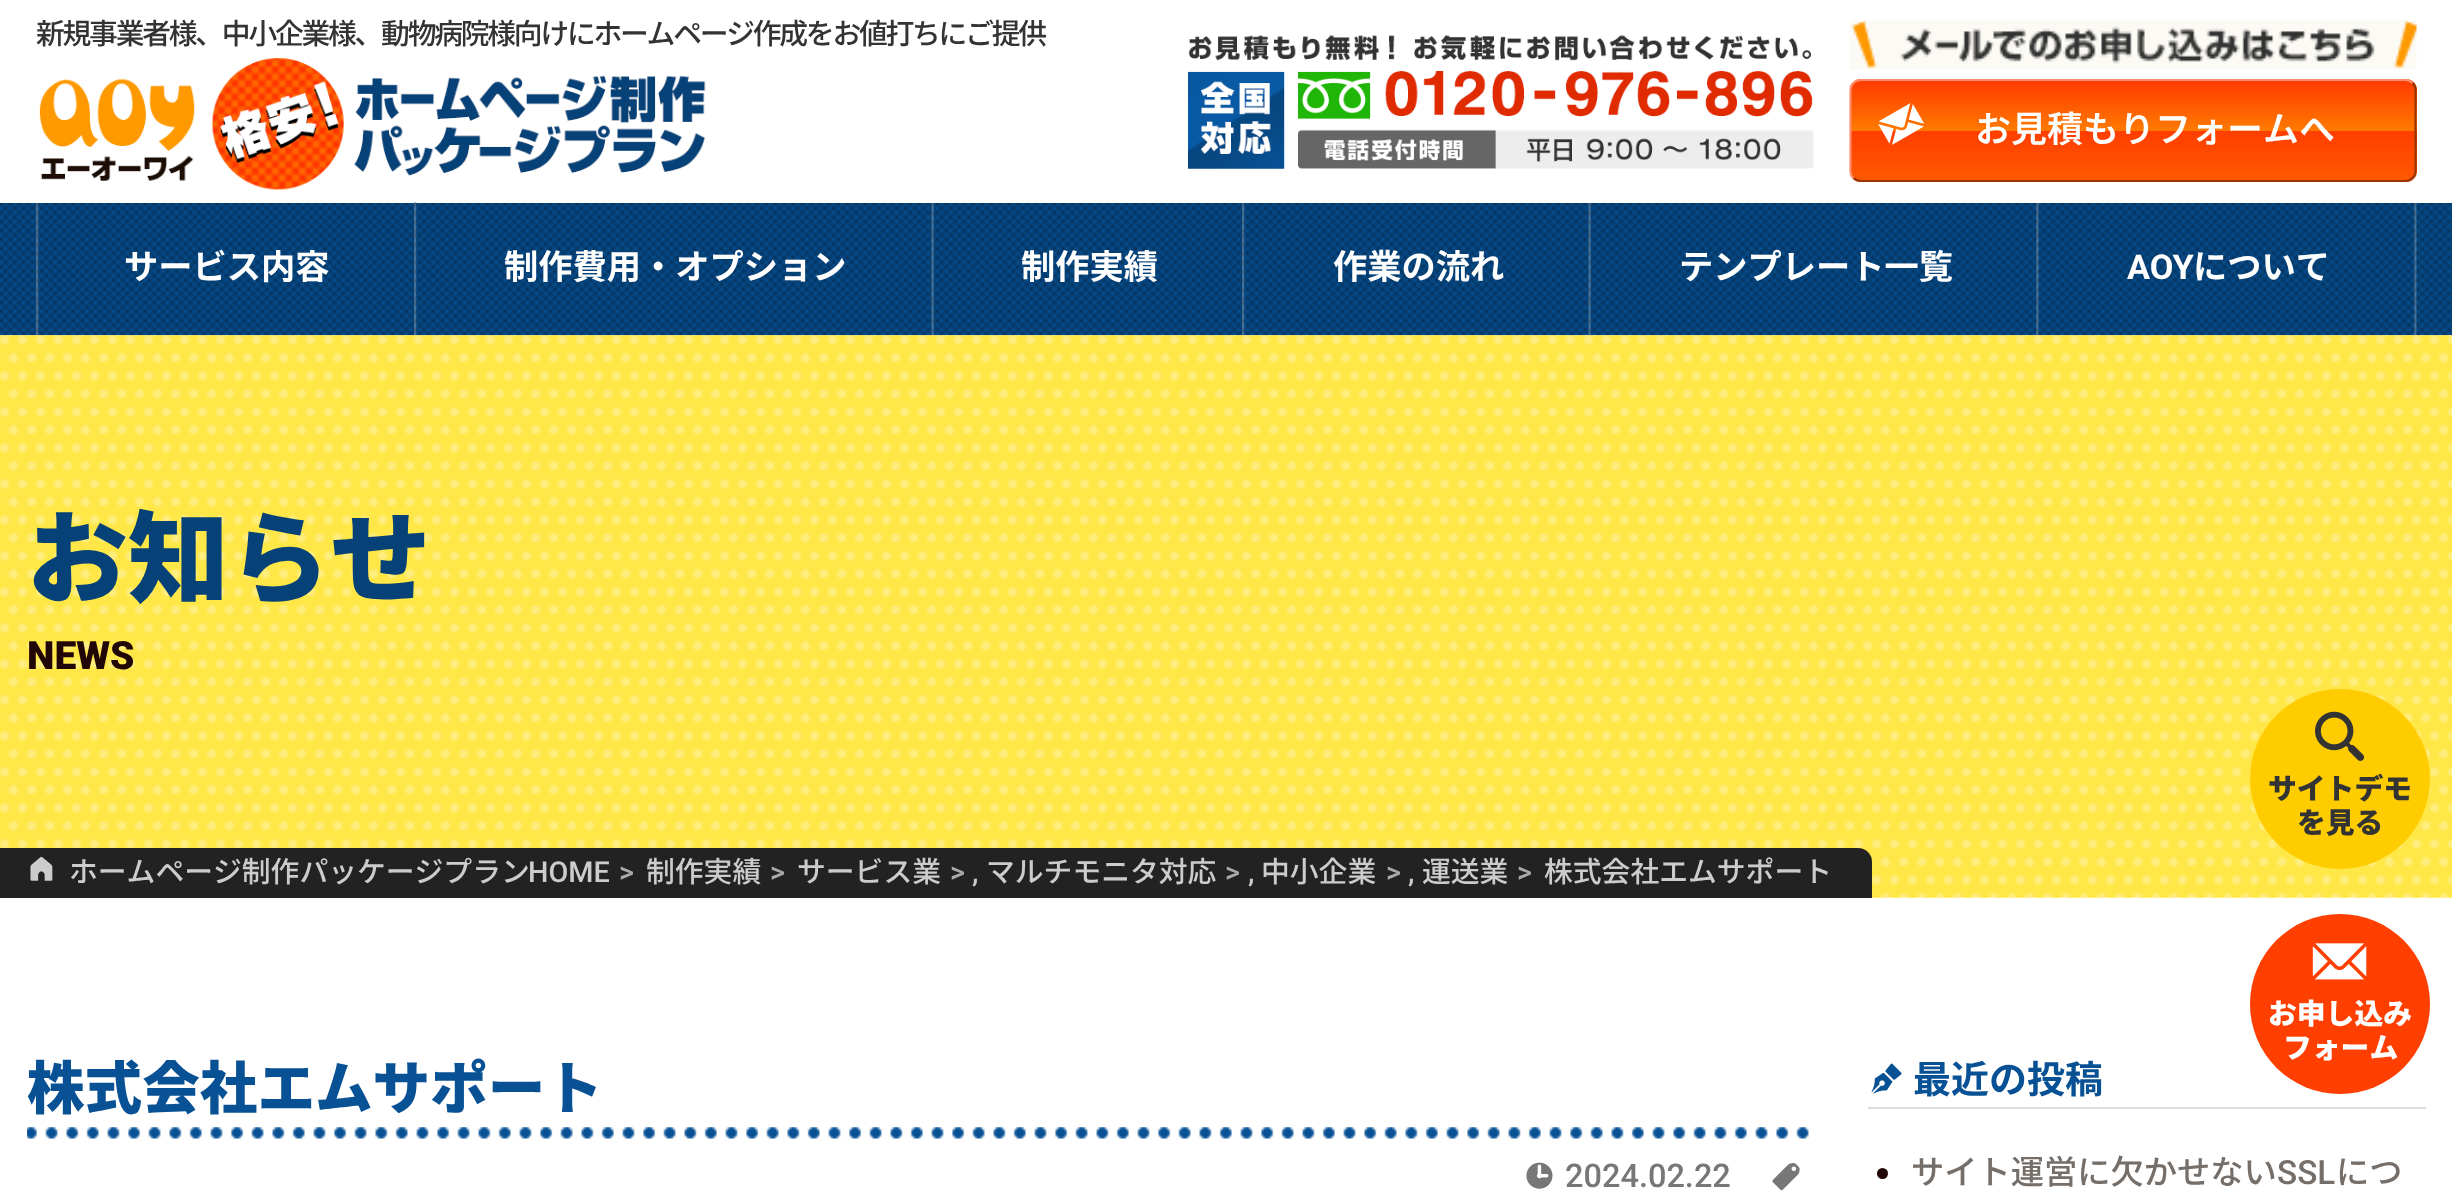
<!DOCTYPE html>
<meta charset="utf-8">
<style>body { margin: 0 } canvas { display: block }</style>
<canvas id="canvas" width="2452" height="1199"></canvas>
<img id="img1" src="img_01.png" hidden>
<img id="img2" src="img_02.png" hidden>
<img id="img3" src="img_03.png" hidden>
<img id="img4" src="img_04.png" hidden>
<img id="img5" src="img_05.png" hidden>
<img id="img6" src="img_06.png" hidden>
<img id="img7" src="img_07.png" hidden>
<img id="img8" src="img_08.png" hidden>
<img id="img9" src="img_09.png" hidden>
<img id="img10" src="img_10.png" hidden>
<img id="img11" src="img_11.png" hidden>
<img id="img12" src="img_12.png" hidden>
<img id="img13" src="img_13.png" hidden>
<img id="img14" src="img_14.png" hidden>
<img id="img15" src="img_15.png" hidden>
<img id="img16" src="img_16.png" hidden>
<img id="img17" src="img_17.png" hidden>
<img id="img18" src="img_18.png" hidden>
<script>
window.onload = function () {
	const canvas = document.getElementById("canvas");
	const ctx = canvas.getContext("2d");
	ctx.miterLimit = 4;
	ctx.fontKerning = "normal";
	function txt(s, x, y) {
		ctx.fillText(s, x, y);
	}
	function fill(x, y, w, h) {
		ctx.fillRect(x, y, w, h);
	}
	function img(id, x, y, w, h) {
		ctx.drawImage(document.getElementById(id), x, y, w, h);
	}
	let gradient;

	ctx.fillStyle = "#FFFFFF";
	fill(0, 0, 2452, 1199);
	img("img1", 39, 58, 667, 132);
	img("img2", 1188, 35, 626, 134);
	img("img3", 1849, 20, 568, 50);
	ctx.save();
	ctx.beginPath();
	ctx.roundRect(1850, 79, 567, 103, 11);
	ctx.clip();
	gradient = ctx.createLinearGradient(2133, 81, 2133, -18);
	gradient.addColorStop(0, "#FF5800");
	gradient.addColorStop(0.49, "#FF3E00");
	gradient.addColorStop(0.5, "#FF7A00");
	gradient.addColorStop(1, "#FF3A00");
	ctx.fillStyle = gradient;
	fill(1850, 79, 567, 2);
	gradient = ctx.createLinearGradient(2133, 180, 2133, 81);
	gradient.addColorStop(0, "#FF5800");
	gradient.addColorStop(0.49, "#FF3E00");
	gradient.addColorStop(0.5, "#FF7A00");
	gradient.addColorStop(1, "#FF3A00");
	ctx.fillStyle = gradient;
	fill(1850, 81, 567, 99);
	gradient = ctx.createLinearGradient(2133, 279, 2133, 180);
	gradient.addColorStop(0, "#FF5800");
	gradient.addColorStop(0.49, "#FF3E00");
	gradient.addColorStop(0.5, "#FF7A00");
	gradient.addColorStop(1, "#FF3A00");
	ctx.fillStyle = gradient;
	fill(1850, 180, 567, 2);
	ctx.restore();
	ctx.beginPath();
	ctx.moveTo(2412.5, 83);
	ctx.bezierCurveTo(2414.5, 84.5, 2415.5, 87.5, 2415.5, 90);
	ctx.lineTo(2415.5, 171);
	ctx.bezierCurveTo(2415.5, 173.5, 2414.5, 176.5, 2412.5, 178);
	ctx.bezierCurveTo(2410.5, 180, 2408, 181, 2405, 181);
	ctx.lineTo(1861, 181);
	ctx.bezierCurveTo(1858, 181, 1855.5, 180, 1853.5, 178);
	ctx.strokeStyle = "#9C3600";
	ctx.lineWidth = 2.2;
	ctx.stroke();
	ctx.beginPath();
	ctx.moveTo(1853.5, 178);
	ctx.bezierCurveTo(1851.5, 176.5, 1850.5, 173.5, 1850.5, 171);
	ctx.lineTo(1850.5, 90);
	ctx.bezierCurveTo(1850.5, 87.5, 1851.5, 84.5, 1853.5, 83);
	ctx.bezierCurveTo(1855.5, 81, 1858, 80, 1861, 80);
	ctx.lineTo(2405, 80);
	ctx.bezierCurveTo(2408, 80, 2410.5, 81, 2412.5, 83);
	ctx.strokeStyle = "#FF8C6B";
	ctx.stroke();
	img("img4", 1878, 103, 47, 42);
	img("img5", 0, 203, 2452, 133);
	img("img6", 36, 203, 3, 133);
	img("img7", 414, 202, 3, 134);
	img("img8", 931, 203, 3, 133);
	img("img6", 1242, 203, 3, 133);
	img("img8", 1588, 203, 3, 133);
	img("img9", 2036, 203, 3, 133);
	img("img10", 2414, 203, 3, 133);
	img("img11", 0, 335, 2452, 563);
	ctx.fillStyle = "#222222";
	fill(0, 848, 27, 50);
	ctx.beginPath();
	ctx.roundRect(27, 848, 1845, 50, [0, 14, 0, 0]);
	ctx.fill();
	img("img12", 30, 856, 23, 25);
	img("img13", 27, 1127, 1782, 12);
	img("img14", 1526, 1162, 27, 27);
	img("img15", 1772, 1163, 28, 28);
	ctx.fillStyle = "#DDDDDD";
	fill(1868, 1107, 558, 2);
	img("img16", 1871, 1063, 31, 31);
	ctx.fillStyle = "#210606";
	ctx.beginPath();
	ctx.arc(1882.5, 1173.5, 5.5, 0, Math.PI * 2);
	ctx.fill();
	ctx.fillStyle = "#FFCC00";
	ctx.beginPath();
	ctx.arc(2340, 779, 90, 0, Math.PI * 2);
	ctx.fill();
	img("img17", 2315, 711, 50, 50);
	ctx.fillStyle = "#FF3F00";
	ctx.beginPath();
	ctx.arc(2340, 1004, 90, 0, Math.PI * 2);
	ctx.fill();
	img("img18", 2312, 943, 55, 37);
	ctx.letterSpacing = "-2.25px";
	ctx.font = "500 28.8px Noto Sans JP";
	ctx.fillStyle = "#333333";
	txt("新規事業者様、中小企業様、動物病院様向けにホームページ作成をお値打ちにご提供", 36, 44);
	ctx.letterSpacing = "0px";
	ctx.font = "600 36px Noto Sans JP";
	ctx.fillStyle = "#FFFFFF";
	txt("お見積もりフォームへ", 1975, 142);
	ctx.font = "bold 34.25px Noto Sans JP";
	txt("サービス内容", 124, 279);
	txt("制作費用・オプション", 504, 279);
	txt("制作実績", 1021, 279);
	txt("作業の流れ", 1333, 279);
	txt("テンプレート一覧", 1679, 279);
	ctx.font = "bold 34.25px Roboto";
	txt("AOY", 2127, 279);
	ctx.font = "bold 34.25px Noto Sans JP";
	txt("について", 2193, 279);
	ctx.font = "900 101px Noto Sans JP";
	ctx.fillStyle = "#064177";
	txt("お知らせ", 27, 595);
	ctx.font = "900 39px Roboto";
	ctx.fillStyle = "#210606";
	txt("NEWS", 27, 669);
	ctx.font = "500 28.8px Noto Sans JP";
	ctx.fillStyle = "#CCCCCC";
	txt("ホームページ制作パッケージプラン", 69, 882);
	ctx.font = "500 28.8px Roboto";
	txt("HOME", 528, 882);
	ctx.fillStyle = "#AAAAAA";
	txt(">", 619, 882);
	ctx.font = "500 28.8px Noto Sans JP";
	ctx.fillStyle = "#CCCCCC";
	txt("制作実績", 646, 882);
	ctx.font = "500 28.8px Roboto";
	ctx.fillStyle = "#AAAAAA";
	txt(">", 770, 882);
	ctx.font = "500 28.8px Noto Sans JP";
	ctx.fillStyle = "#CCCCCC";
	txt("サービス業", 797, 882);
	ctx.font = "500 28.8px Roboto";
	ctx.fillStyle = "#AAAAAA";
	txt(">", 950, 882);
	ctx.fillStyle = "#CCCCCC";
	txt(",", 972, 882);
	ctx.font = "500 28.8px Noto Sans JP";
	txt("マルチモニタ対応", 986, 882);
	ctx.font = "500 28.8px Roboto";
	ctx.fillStyle = "#AAAAAA";
	txt(">", 1225, 882);
	ctx.fillStyle = "#CCCCCC";
	txt(",", 1248, 882);
	ctx.font = "500 28.8px Noto Sans JP";
	txt("中小企業", 1261, 882);
	ctx.font = "500 28.8px Roboto";
	ctx.fillStyle = "#AAAAAA";
	txt(">", 1386, 882);
	ctx.fillStyle = "#CCCCCC";
	txt(",", 1408, 882);
	ctx.font = "500 28.8px Noto Sans JP";
	txt("運送業", 1422, 882);
	ctx.font = "500 28.8px Roboto";
	ctx.fillStyle = "#AAAAAA";
	txt(">", 1517, 882);
	ctx.font = "500 28.8px Noto Sans JP";
	ctx.fillStyle = "#CCCCCC";
	txt("株式会社エムサポート", 1544, 882);
	ctx.font = "900 57.6px Noto Sans JP";
	ctx.fillStyle = "#085195";
	txt("株式会社エムサポート", 27, 1109);
	ctx.font = "500 32.5px Roboto";
	ctx.fillStyle = "#777777";
	txt("2024.02.22", 1565, 1187);
	ctx.font = "bold 38px Noto Sans JP";
	ctx.fillStyle = "#085195";
	txt("最近の投稿", 1913, 1093);
	ctx.font = "500 33.25px Noto Sans JP";
	ctx.fillStyle = "#756E69";
	txt("サイト運営に欠かせない", 1911, 1184);
	ctx.font = "500 33.25px Roboto";
	txt("SSL", 2277, 1184);
	ctx.font = "500 33.25px Noto Sans JP";
	txt("につ", 2336, 1184);
	ctx.font = "900 28.8px Noto Sans JP";
	ctx.fillStyle = "#333333";
	txt("サイトデモ", 2268, 799);
	txt("を見る", 2297, 833);
	ctx.fillStyle = "#FFFFFF";
	txt("お申し込み", 2268, 1024);
	txt("フォーム", 2283, 1058);
};
</script>
